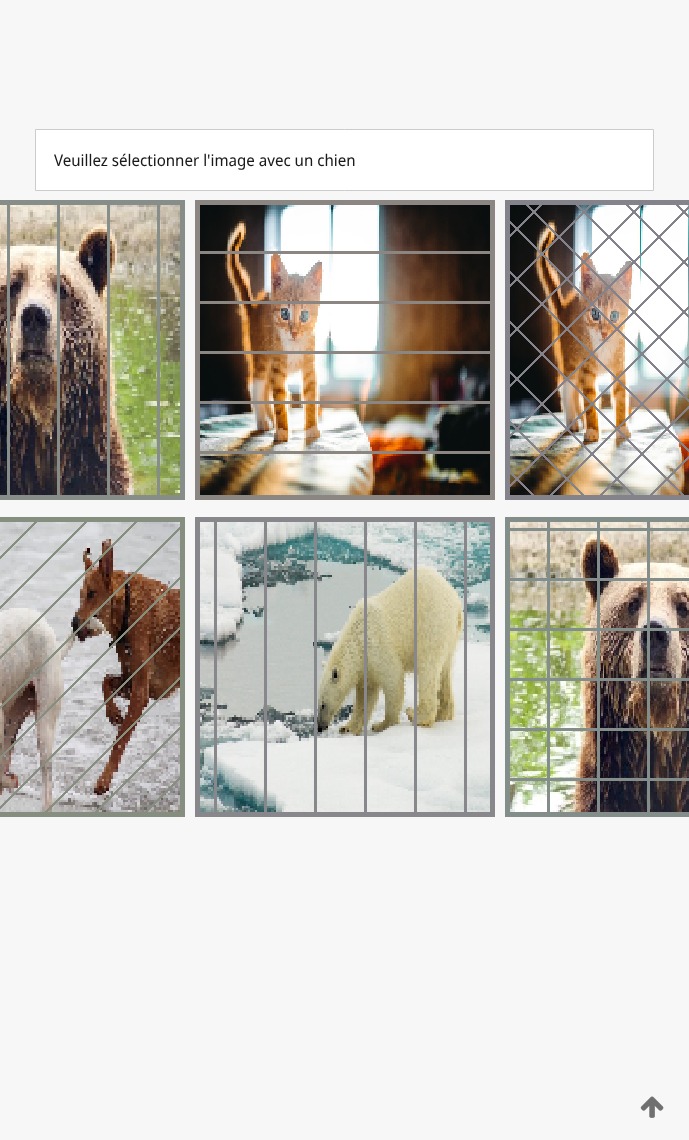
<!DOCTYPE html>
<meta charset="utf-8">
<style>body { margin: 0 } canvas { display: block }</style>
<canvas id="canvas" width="689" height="1140"></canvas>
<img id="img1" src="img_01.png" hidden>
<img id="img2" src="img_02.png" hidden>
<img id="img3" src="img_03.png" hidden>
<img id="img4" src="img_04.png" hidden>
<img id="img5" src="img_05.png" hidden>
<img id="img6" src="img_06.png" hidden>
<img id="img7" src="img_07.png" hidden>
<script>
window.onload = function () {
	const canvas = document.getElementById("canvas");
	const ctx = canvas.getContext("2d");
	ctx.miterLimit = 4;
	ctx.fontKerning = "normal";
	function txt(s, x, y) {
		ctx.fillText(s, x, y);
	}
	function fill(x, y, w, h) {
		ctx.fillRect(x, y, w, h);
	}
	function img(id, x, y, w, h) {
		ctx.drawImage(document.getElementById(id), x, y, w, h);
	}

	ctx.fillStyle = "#F7F7F7";
	fill(0, 0, 689, 1140);
	ctx.fillStyle = "#FFFFFF";
	ctx.beginPath();
	ctx.rect(35.5, 129.5, 618, 61);
	ctx.fill();
	ctx.strokeStyle = "#CCCCCC";
	ctx.stroke();
	img("img1", 0, 200, 185, 300);
	img("img2", 195, 200, 300, 300);
	img("img3", 505, 200, 184, 300);
	img("img4", 0, 517, 185, 300);
	img("img5", 195, 517, 300, 300);
	img("img6", 505, 517, 184, 300);
	img("img7", 640, 1096, 24, 22);
	ctx.font = "16px Noto Sans Display";
	ctx.fillStyle = "#1A1A1A";
	txt("Veuillez sélectionner l'image avec un chien", 54, 166);
};
</script>
